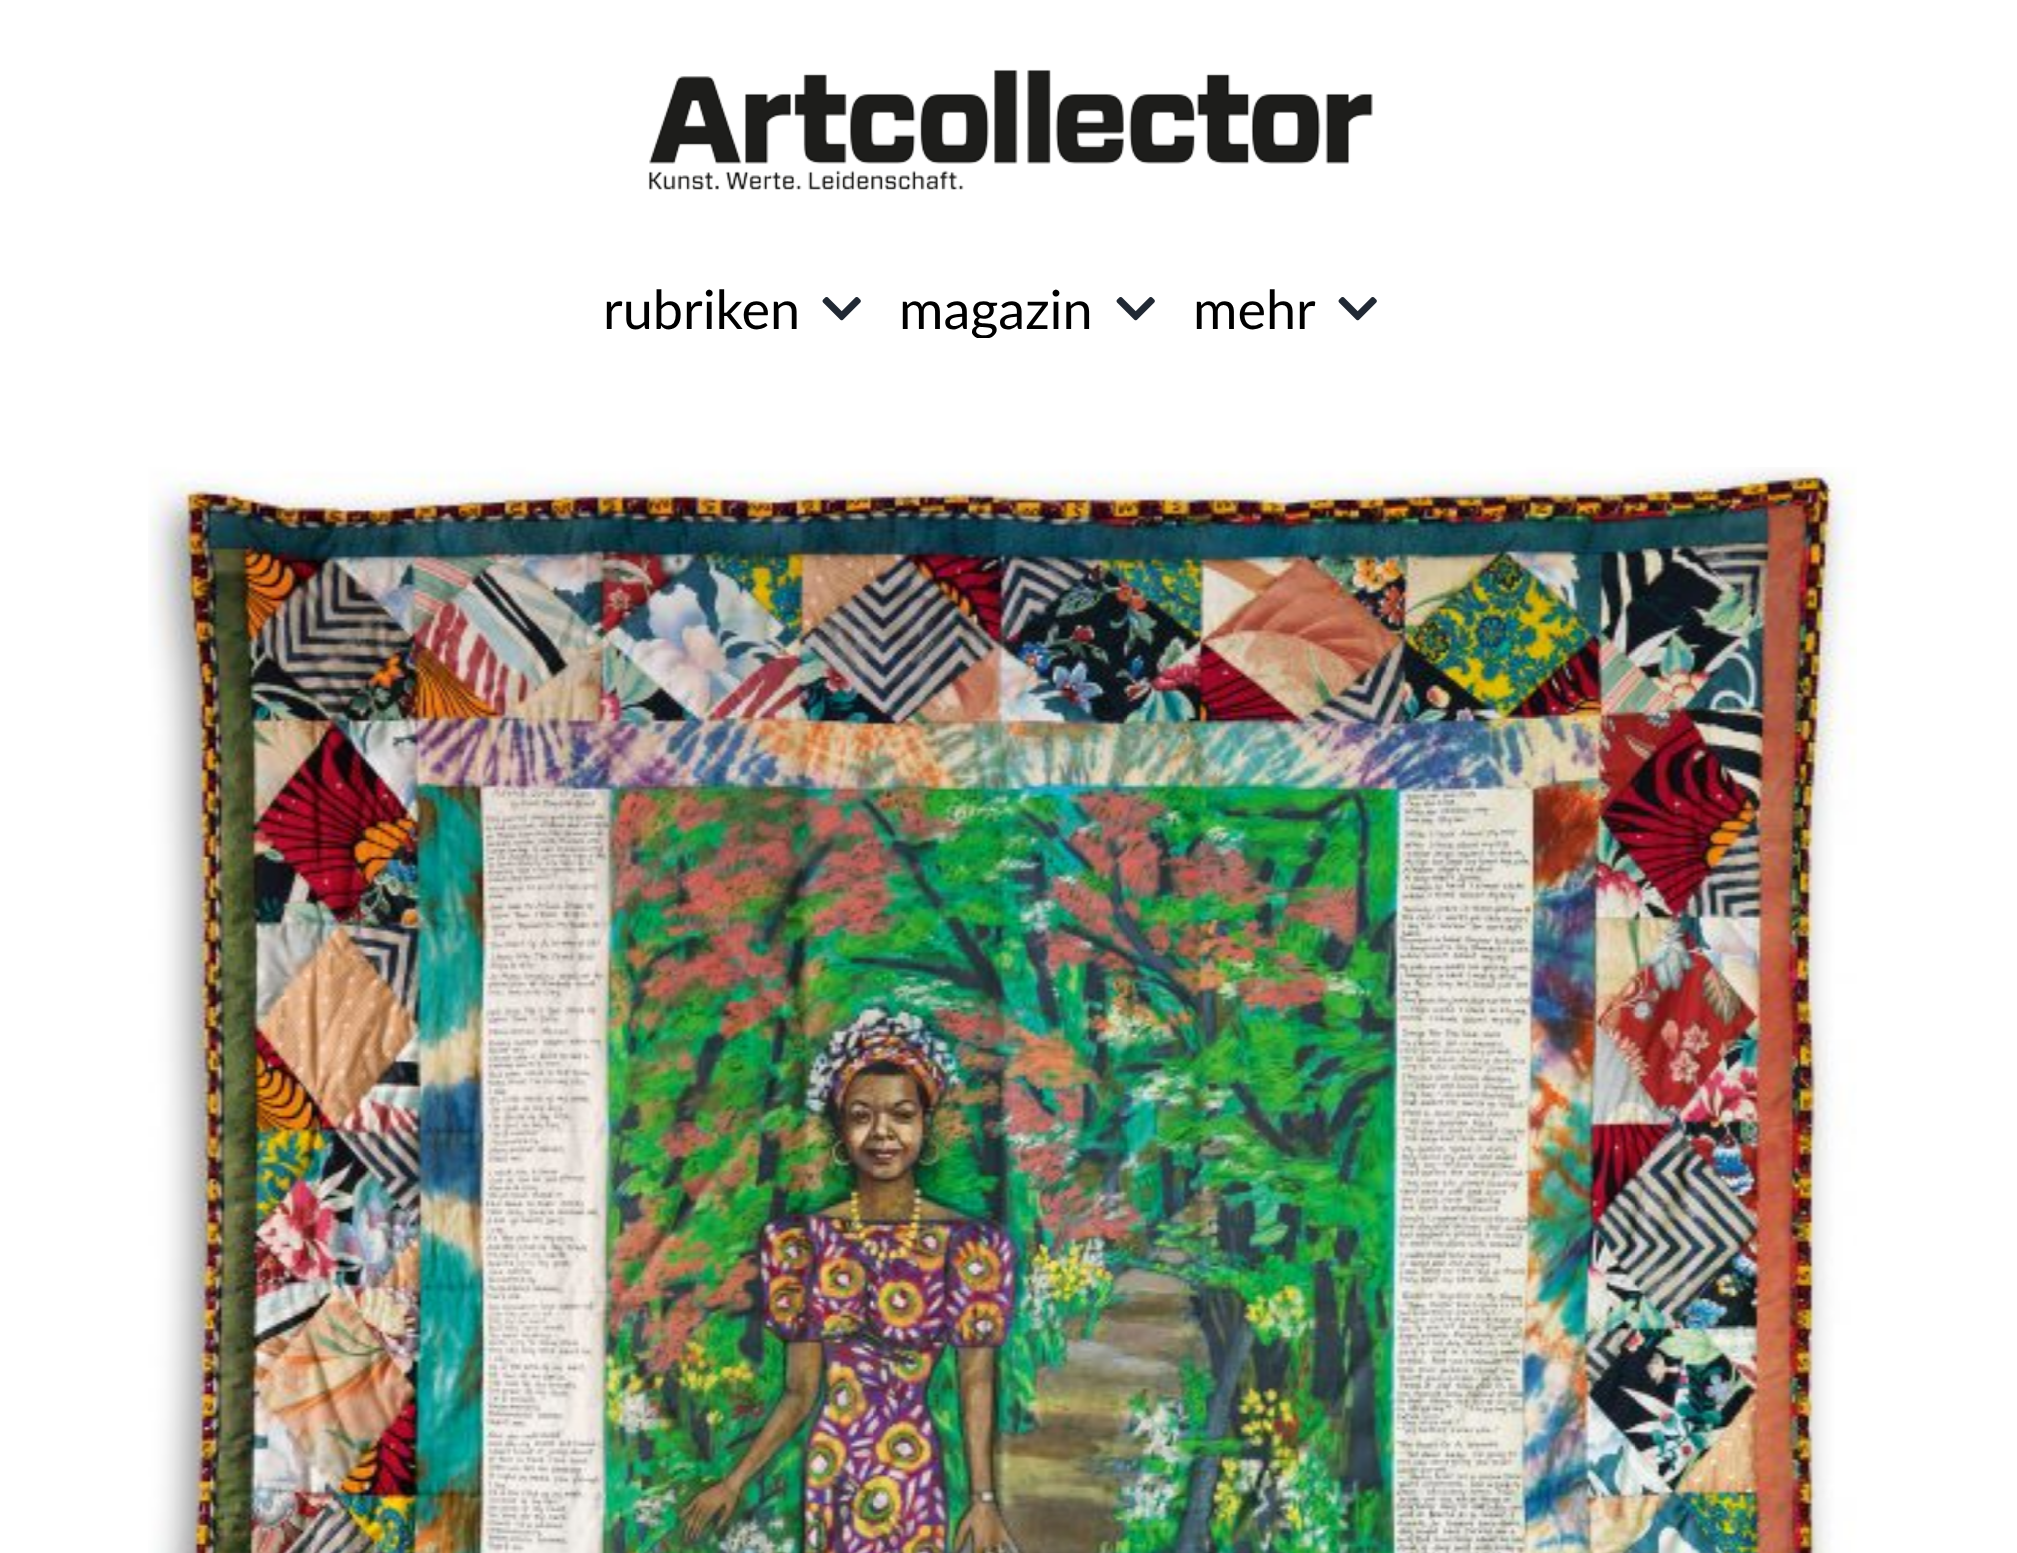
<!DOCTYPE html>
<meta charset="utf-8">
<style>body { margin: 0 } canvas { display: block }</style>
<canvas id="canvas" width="2017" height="1553"></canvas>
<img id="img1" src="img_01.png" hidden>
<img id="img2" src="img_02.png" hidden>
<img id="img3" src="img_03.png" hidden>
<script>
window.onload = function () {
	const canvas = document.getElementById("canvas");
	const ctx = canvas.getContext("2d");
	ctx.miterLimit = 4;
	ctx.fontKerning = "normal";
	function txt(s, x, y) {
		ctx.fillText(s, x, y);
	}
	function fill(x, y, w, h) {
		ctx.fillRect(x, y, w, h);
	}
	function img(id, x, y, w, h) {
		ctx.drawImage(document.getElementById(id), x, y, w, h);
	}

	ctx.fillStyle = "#FFFFFF";
	fill(0, 0, 2017, 1553);
	img("img1", 648, 69, 725, 121);
	img("img2", 822, 297, 39, 24);
	img("img2", 1116, 297, 39, 24);
	img("img2", 1338, 297, 39, 24);
	img("img3", 148, 467, 1709, 1086);
	ctx.font = "54px Lato";
	ctx.fillStyle = "#000000";
	txt("rubriken", 603, 329);
	ctx.save();
	ctx.beginPath();
	ctx.rect(900, 278, 293, 60);
	ctx.clip();
	txt("magazin", 899, 329);
	ctx.restore();
	txt("mehr", 1193, 329);
};
</script>
